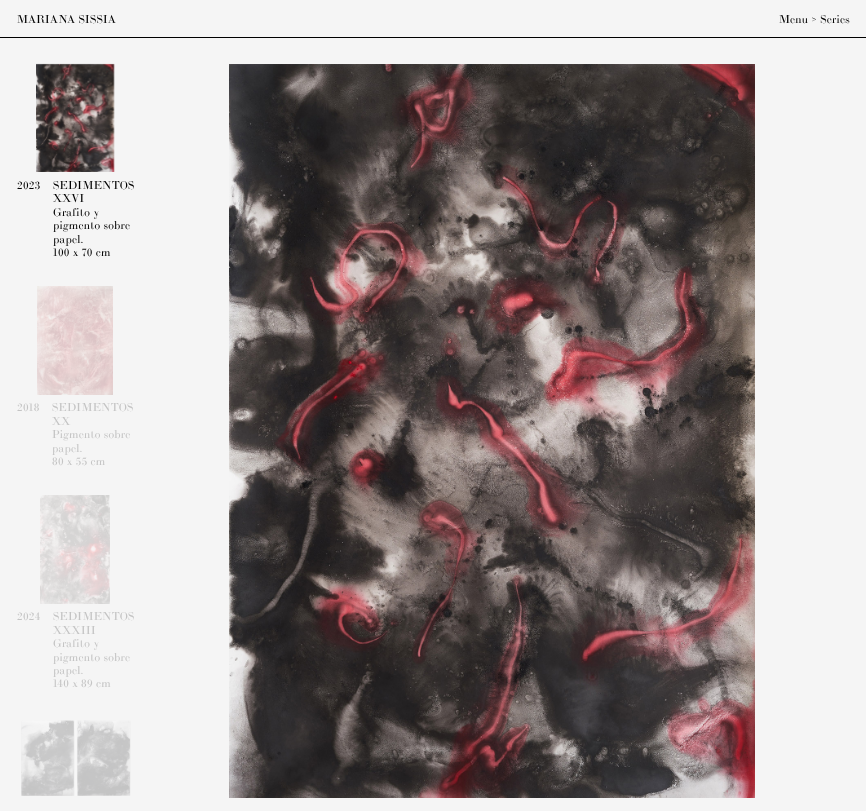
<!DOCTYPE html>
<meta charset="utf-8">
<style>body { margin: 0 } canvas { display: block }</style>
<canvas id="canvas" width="866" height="811"></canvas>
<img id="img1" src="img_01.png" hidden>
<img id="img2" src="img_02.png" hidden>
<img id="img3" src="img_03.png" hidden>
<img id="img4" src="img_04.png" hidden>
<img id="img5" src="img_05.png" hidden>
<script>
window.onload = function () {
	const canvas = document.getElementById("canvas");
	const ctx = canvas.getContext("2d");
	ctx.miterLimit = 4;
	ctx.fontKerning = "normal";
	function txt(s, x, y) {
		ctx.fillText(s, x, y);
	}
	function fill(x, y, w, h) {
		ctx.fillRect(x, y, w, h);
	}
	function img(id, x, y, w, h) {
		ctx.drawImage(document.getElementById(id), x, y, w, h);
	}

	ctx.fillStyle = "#F5F5F5";
	fill(0, 0, 866, 811);
	ctx.fillStyle = "#000000";
	fill(0, 37, 866, 1);
	img("img1", 36, 63, 79, 109);
	img("img2", 37, 286, 76, 109);
	img("img3", 40, 495, 70, 109);
	img("img4", 21, 720, 110, 76);
	img("img5", 229, 64, 526, 734);
	ctx.letterSpacing = "0.25px";
	ctx.font = "11.25px 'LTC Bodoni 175'";
	txt("MARIANA SISSIA", 17, 23);
	txt("Menu > Series", 779, 23);
	txt("2023", 17, 189);
	txt("SEDIMENTOS", 53, 189);
	txt("XXVI", 53, 202);
	txt("Grafito y", 53, 216);
	txt("pigmento sobre", 53, 229);
	txt("papel.", 53, 243);
	txt("100 x 70 cm", 53, 256);
	ctx.fillStyle = "#C4C4C4";
	txt("2018", 17, 411);
	txt("SEDIMENTOS", 52, 411);
	txt("XX", 52, 425);
	txt("Pigmento sobre", 52, 438);
	txt("papel.", 52, 452);
	txt("80 x 55 cm", 52, 465);
	txt("2024", 17, 620);
	txt("SEDIMENTOS", 53, 620);
	txt("XXXIII", 53, 634);
	txt("Grafito y", 53, 647);
	txt("pigmento sobre", 53, 661);
	txt("papel.", 53, 674);
	txt("140 x 89 cm", 53, 687);
};
</script>
